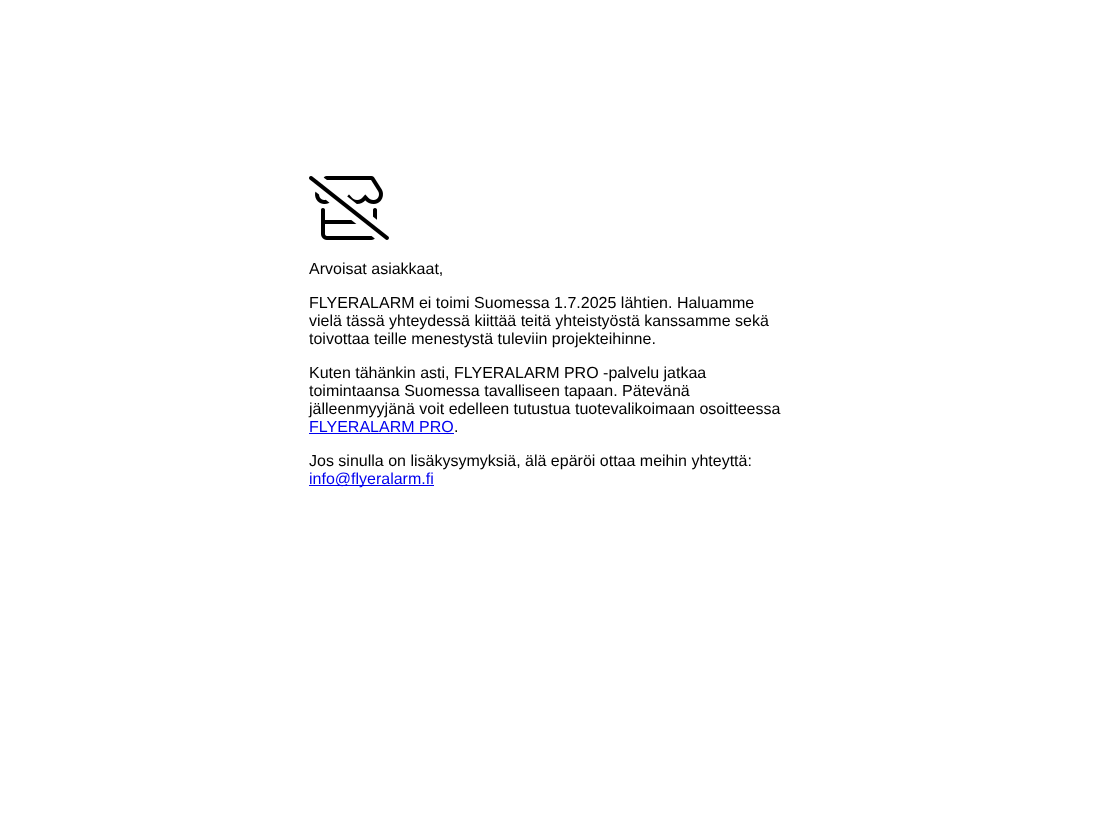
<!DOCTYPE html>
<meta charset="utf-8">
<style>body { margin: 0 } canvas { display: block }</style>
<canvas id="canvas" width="1098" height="821"></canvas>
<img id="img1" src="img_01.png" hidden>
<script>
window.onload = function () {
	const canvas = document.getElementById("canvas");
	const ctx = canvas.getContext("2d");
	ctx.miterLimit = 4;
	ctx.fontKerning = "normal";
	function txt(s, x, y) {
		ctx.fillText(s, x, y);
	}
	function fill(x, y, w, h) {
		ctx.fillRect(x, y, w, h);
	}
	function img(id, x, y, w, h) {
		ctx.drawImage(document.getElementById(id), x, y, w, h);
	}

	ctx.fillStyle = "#FFFFFF";
	fill(0, 0, 1098, 821);
	img("img1", 309, 176, 80, 64);
	ctx.fillStyle = "#0000EE";
	fill(309, 433, 145, 1);
	fill(309, 485, 125, 1);
	ctx.font = "16px Liberation Sans";
	ctx.fillStyle = "#000000";
	txt("Arvoisat asiakkaat,", 309, 274);
	txt("FLYERALARM ei toimi Suomessa 1.7.2025 lähtien. Haluamme", 309, 308);
	txt("vielä tässä yhteydessä kiittää teitä yhteistyöstä kanssamme sekä", 309, 326);
	txt("toivottaa teille menestystä tuleviin projekteihinne.", 309, 344);
	txt("Kuten tähänkin asti, FLYERALARM PRO -palvelu jatkaa", 309, 378);
	txt("toimintaansa Suomessa tavalliseen tapaan. Pätevänä", 309, 396);
	txt("jälleenmyyjänä voit edelleen tutustua tuotevalikoimaan osoitteessa", 309, 414);
	ctx.fillStyle = "#0000EE";
	txt("FLYERALARM PRO", 309, 432);
	ctx.fillStyle = "#000000";
	txt(".", 454, 432);
	txt("Jos sinulla on lisäkysymyksiä, älä epäröi ottaa meihin yhteyttä:", 309, 466);
	ctx.fillStyle = "#0000EE";
	txt("info@flyeralarm.fi", 309, 484);
};
</script>
